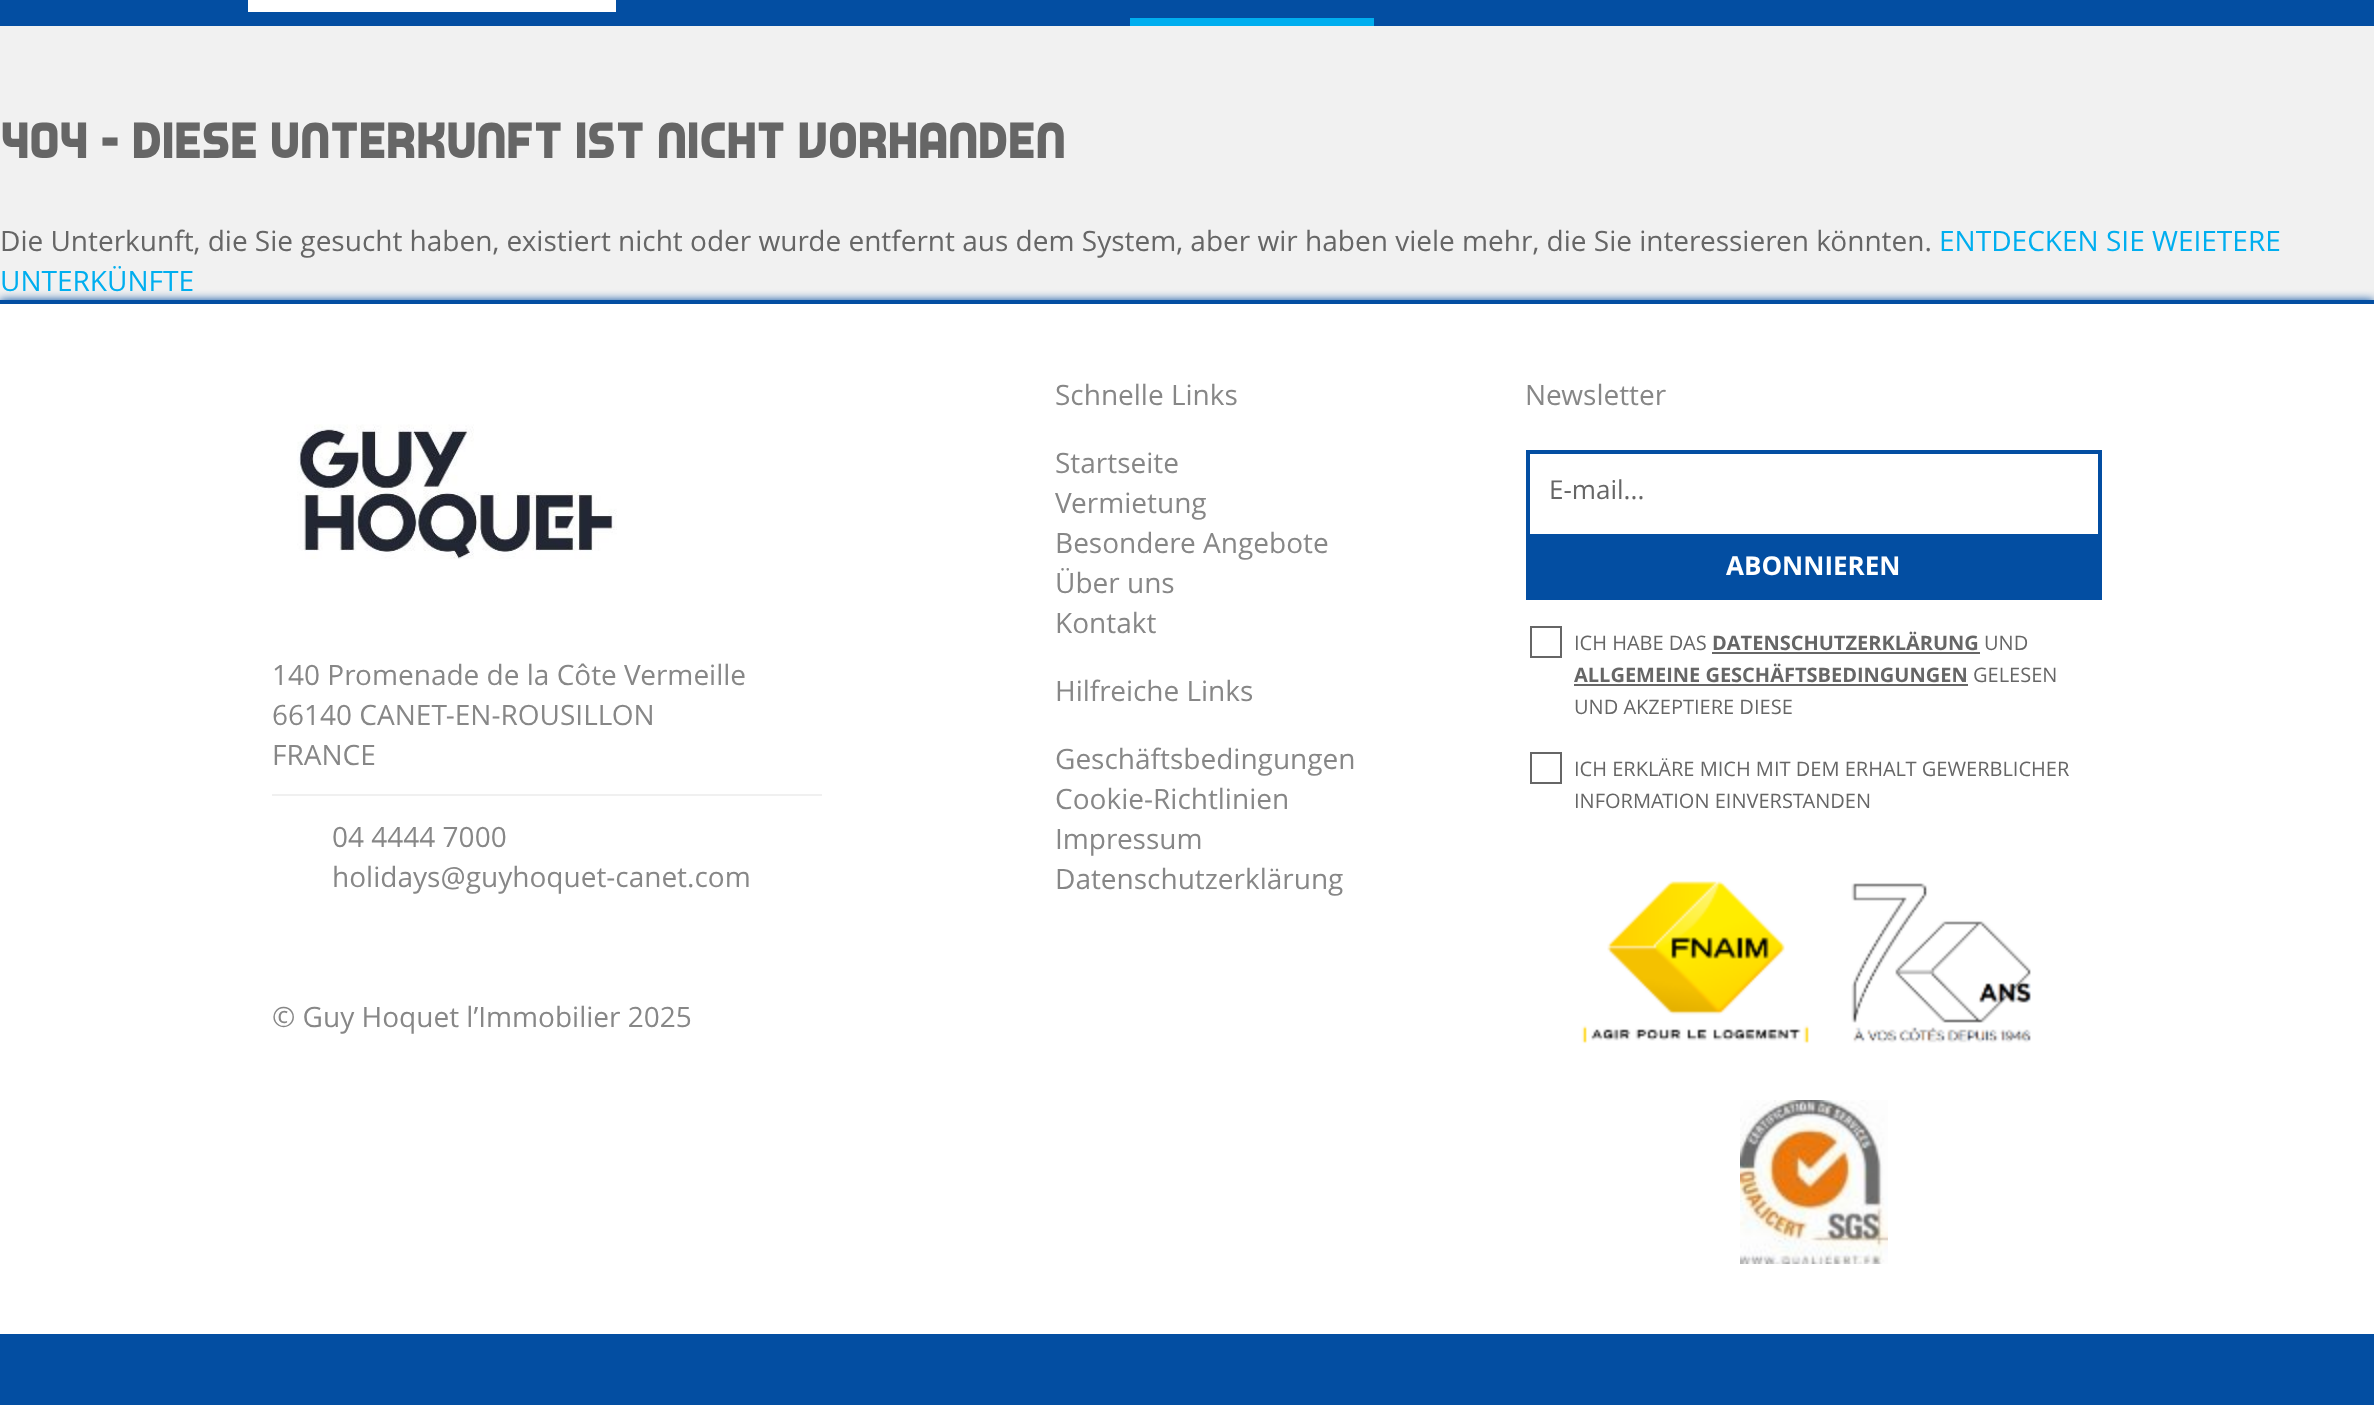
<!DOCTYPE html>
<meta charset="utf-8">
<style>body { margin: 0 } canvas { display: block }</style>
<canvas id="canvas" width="2374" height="1405"></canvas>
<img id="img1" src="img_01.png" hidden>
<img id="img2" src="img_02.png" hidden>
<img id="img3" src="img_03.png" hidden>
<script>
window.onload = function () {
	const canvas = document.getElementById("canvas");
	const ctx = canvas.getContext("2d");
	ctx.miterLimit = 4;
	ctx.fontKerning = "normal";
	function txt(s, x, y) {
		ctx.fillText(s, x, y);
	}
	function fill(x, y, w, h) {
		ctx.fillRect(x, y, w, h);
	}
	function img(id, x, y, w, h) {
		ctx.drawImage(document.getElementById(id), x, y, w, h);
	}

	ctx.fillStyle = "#F1F1F1";
	fill(0, 0, 2374, 1405);
	ctx.fillStyle = "#034EA2";
	fill(0, 0, 2374, 26);
	ctx.fillStyle = "#FFFFFF";
	fill(248, 0, 368, 12);
	ctx.fillStyle = "#00AEEF";
	fill(1130, 18, 244, 8);
	ctx.fillStyle = "#034EA2";
	ctx.filter = "blur(5px)";
	ctx.beginPath();
	ctx.rect(0, 300, 2374, 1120);
	ctx.fill();
	ctx.filter = "none";
	ctx.fillStyle = "#FFFFFF";
	fill(0, 304, 2374, 1030);
	ctx.fillStyle = "#034EA2";
	fill(0, 300, 2374, 4);
	ctx.strokeStyle = "#034EA2";
	ctx.lineWidth = 4;
	ctx.strokeRect(1528, 452, 572, 146);
	fill(1530, 534, 568, 62);
	ctx.strokeStyle = "#666666";
	ctx.lineWidth = 2;
	ctx.strokeRect(1531, 627, 30, 30);
	ctx.fillStyle = "#666666";
	fill(1712, 652, 268, 2);
	fill(1574, 684, 394, 2);
	ctx.strokeRect(1531, 753, 30, 30);
	img("img1", 1581, 881, 450, 163);
	img("img2", 1740, 1100, 148, 164);
	img("img3", 297, 424, 320, 135);
	ctx.fillStyle = "#F0F0F0";
	fill(272, 794, 550, 2);
	ctx.fillStyle = "#034EA2";
	fill(0, 1334, 2374, 71);
	ctx.font = "56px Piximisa";
	ctx.fillStyle = "#666666";
	txt("404 - Diese Unterkunft ist nicht vorhanden", 0, 158);
	ctx.font = "28px Open Sans";
	txt("Die Unterkunft, die Sie gesucht haben, existiert nicht oder wurde entfernt aus dem System, aber wir haben viele mehr, die Sie interessieren könnten.", 0, 251);
	ctx.fillStyle = "#00AEEF";
	txt("ENTDECKEN SIE WEIETERE", 1939, 251);
	txt("UNTERKÜNFTE", 0, 291);
	ctx.fillStyle = "#878787";
	txt("Schnelle Links", 1055, 405);
	txt("Startseite", 1055, 473);
	txt("Vermietung", 1055, 513);
	txt("Besondere Angebote", 1055, 553);
	txt("Über uns", 1055, 593);
	txt("Kontakt", 1055, 633);
	txt("Hilfreiche Links", 1055, 701);
	txt("Geschäftsbedingungen", 1055, 769);
	txt("Cookie-Richtlinien", 1055, 809);
	txt("Impressum", 1055, 849);
	txt("Datenschutzerklärung", 1055, 889);
	txt("Newsletter", 1525, 405);
	ctx.font = "26px Open Sans";
	ctx.fillStyle = "#666666";
	txt("E-mail...", 1549, 499);
	ctx.font = "bold 26px Open Sans";
	ctx.fillStyle = "#FFFFFF";
	txt("ABONNIEREN", 1726, 575);
	ctx.font = "20px Open Sans";
	ctx.fillStyle = "#666666";
	txt("ICH HABE DAS", 1574, 650);
	ctx.font = "bold 20px Open Sans";
	txt("DATENSCHUTZERKLÄRUNG", 1712, 650);
	ctx.font = "20px Open Sans";
	txt("UND", 1984, 650);
	ctx.font = "bold 20px Open Sans";
	txt("ALLGEMEINE GESCHÄFTSBEDINGUNGEN", 1574, 682);
	ctx.font = "20px Open Sans";
	txt("GELESEN", 1973, 682);
	txt("UND AKZEPTIERE DIESE", 1574, 714);
	txt("ICH ERKLÄRE MICH MIT DEM ERHALT GEWERBLICHER", 1574, 776);
	txt("INFORMATION EINVERSTANDEN", 1574, 808);
	ctx.font = "28px Open Sans";
	ctx.fillStyle = "#878787";
	txt("140 Promenade de la Côte Vermeille", 272, 685);
	txt("66140 CANET-EN-ROUSILLON", 272, 725);
	txt("FRANCE", 272, 765);
	txt("04 4444 7000", 332, 847);
	txt("holidays@guyhoquet-canet.com", 332, 887);
	txt("© Guy Hoquet l’Immobilier 2025", 272, 1027);
};
</script>
